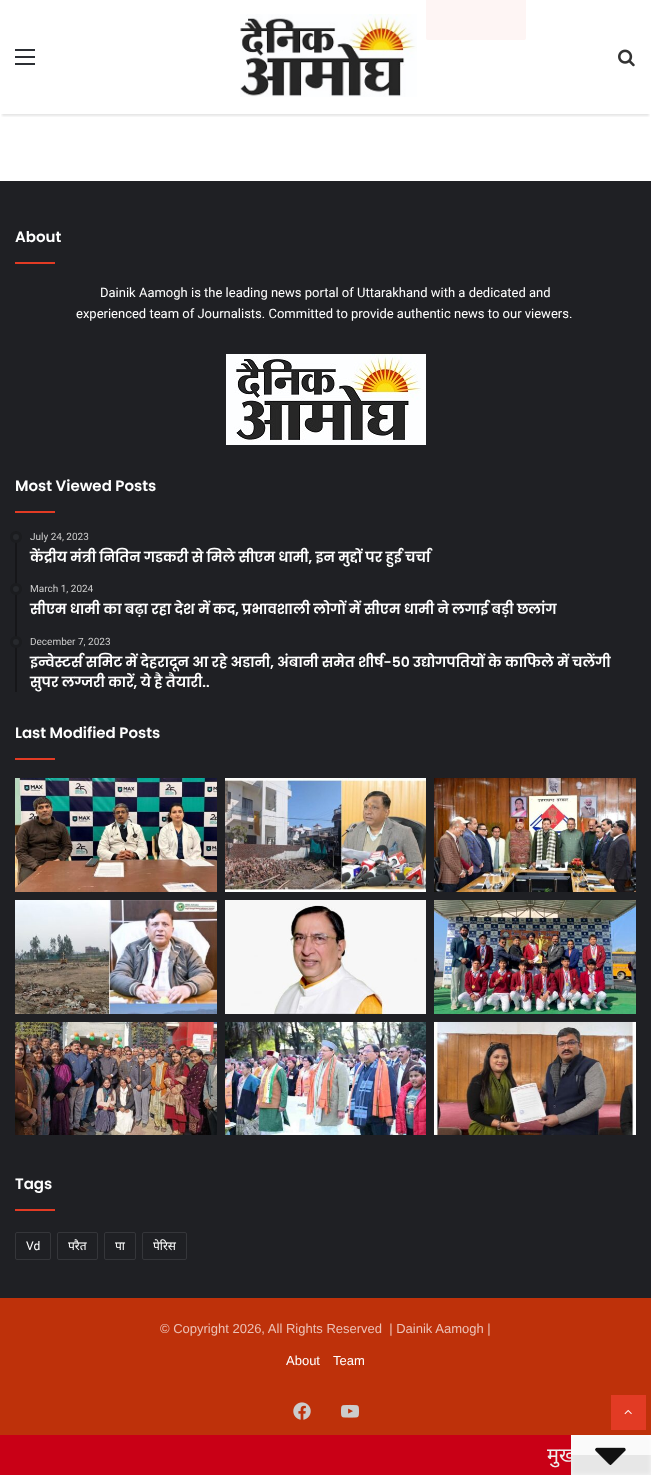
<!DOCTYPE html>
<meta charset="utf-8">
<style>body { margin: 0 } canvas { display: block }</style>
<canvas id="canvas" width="651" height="1475"></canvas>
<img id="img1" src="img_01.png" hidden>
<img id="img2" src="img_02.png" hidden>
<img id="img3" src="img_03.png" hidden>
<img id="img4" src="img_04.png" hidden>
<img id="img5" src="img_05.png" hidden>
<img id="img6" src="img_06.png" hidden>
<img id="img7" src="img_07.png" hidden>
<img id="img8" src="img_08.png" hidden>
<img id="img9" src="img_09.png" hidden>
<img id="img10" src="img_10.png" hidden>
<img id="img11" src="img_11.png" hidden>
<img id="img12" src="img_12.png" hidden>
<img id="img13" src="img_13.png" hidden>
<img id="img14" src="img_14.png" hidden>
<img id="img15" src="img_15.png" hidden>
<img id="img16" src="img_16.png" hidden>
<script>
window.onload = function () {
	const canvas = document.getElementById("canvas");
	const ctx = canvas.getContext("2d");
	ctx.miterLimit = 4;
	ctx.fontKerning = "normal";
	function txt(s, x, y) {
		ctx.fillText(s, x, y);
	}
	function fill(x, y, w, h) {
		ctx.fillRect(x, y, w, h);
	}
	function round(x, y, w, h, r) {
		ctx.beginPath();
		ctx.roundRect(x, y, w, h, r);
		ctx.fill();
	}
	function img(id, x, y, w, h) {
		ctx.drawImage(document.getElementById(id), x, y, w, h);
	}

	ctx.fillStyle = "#FFFFFF";
	fill(0, 0, 651, 1475);
	ctx.fillStyle = "#FEF5F4";
	round(426, -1, 100, 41, 2);
	ctx.save();
	ctx.beginPath();
	ctx.rect(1, 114, 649, 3);
	ctx.clip();
	ctx.fillStyle = "rgba(0, 0, 0, 0.1)";
	ctx.filter = "blur(1px)";
	ctx.beginPath();
	ctx.rect(2, 6, 647, 110);
	ctx.fill();
	ctx.filter = "none";
	ctx.restore();
	ctx.fillStyle = "#2C2F34";
	fill(15, 56, 20, 2);
	fill(15, 49, 20, 2);
	fill(15, 63, 20, 2);
	img("img1", 240, 14, 177, 83);
	img("img2", 618, 49, 17, 18);
	ctx.fillStyle = "#1F2024";
	fill(0, 181, 651, 1117);
	ctx.fillStyle = "#E23B24";
	fill(15, 262, 40, 2);
	img("img3", 226, 354, 200, 91);
	fill(15, 511, 40, 2);
	ctx.fillStyle = "#161619";
	fill(15, 531, 2, 161);
	ctx.fillStyle = "#27292D";
	ctx.beginPath();
	ctx.arc(16, 537, 4.5, 0, Math.PI * 2);
	ctx.fill();
	ctx.strokeStyle = "#1B1C1F";
	ctx.lineWidth = 3;
	ctx.stroke();
	ctx.beginPath();
	ctx.arc(16, 589, 4.5, 0, Math.PI * 2);
	ctx.fill();
	ctx.stroke();
	ctx.beginPath();
	ctx.arc(16, 642, 4.5, 0, Math.PI * 2);
	ctx.fill();
	ctx.stroke();
	ctx.fillStyle = "#E23B24";
	fill(15, 758, 40, 2);
	img("img4", 15, 778, 202, 114);
	img("img5", 225, 778, 201, 114);
	img("img6", 434, 778, 202, 114);
	img("img7", 15, 900, 202, 114);
	img("img8", 225, 900, 201, 114);
	img("img9", 434, 900, 202, 114);
	img("img10", 15, 1022, 202, 113);
	img("img11", 225, 1022, 201, 113);
	img("img12", 434, 1021, 202, 114);
	fill(15, 1209, 40, 2);
	ctx.beginPath();
	ctx.roundRect(15.5, 1232.5, 35, 27, 1.5);
	ctx.strokeStyle = "#35363A";
	ctx.lineWidth = 1;
	ctx.stroke();
	ctx.beginPath();
	ctx.roundRect(57.5, 1232.5, 40, 27, 1.5);
	ctx.stroke();
	ctx.beginPath();
	ctx.roundRect(104.5, 1232.5, 31, 27, 1.5);
	ctx.stroke();
	ctx.beginPath();
	ctx.roundRect(142.5, 1232.5, 44, 27, 1.5);
	ctx.stroke();
	ctx.fillStyle = "#BE310A";
	fill(0, 1298, 651, 137);
	img("img13", 293, 1402, 18, 18);
	img("img14", 341, 1404, 18, 14);
	ctx.fillStyle = "#E23B24";
	fill(611, 1395, 35, 35);
	img("img15", 624, 1409, 8, 6);
	ctx.fillStyle = "#C90016";
	fill(0, 1435, 571, 40);
	ctx.font = "600 15px Poppins";
	ctx.fillStyle = "#FFFFFF";
	txt("About", 15, 242);
	ctx.font = "13px Roboto";
	txt("Dainik Aamogh is the leading news portal of Uttarakhand with a dedicated and", 100, 297);
	txt("experienced team of Journalists. Committed to provide authentic news to our viewers.", 76, 318);
	ctx.font = "600 15px Poppins";
	txt("Most Viewed Posts", 15, 491);
	ctx.font = "10px Roboto";
	ctx.fillStyle = "#CCCCCC";
	txt("July 24, 2023", 30, 540);
	ctx.font = "600 14px Poppins";
	ctx.fillStyle = "#FFFFFF";
	txt("केंद्रीय मंत्री नितिन गडकरी से मिले सीएम धामी, इन मुद्दों पर हुई चर्चा", 30, 562);
	ctx.font = "10px Roboto";
	ctx.fillStyle = "#CCCCCC";
	txt("March 1, 2024", 30, 592);
	ctx.font = "600 14px Poppins";
	ctx.fillStyle = "#FFFFFF";
	txt("सीएम धामी का बढ़ा रहा देश में कद, प्रभावशाली लोगों में सीएम धामी ने लगाई बड़ी छलांग", 30, 614);
	ctx.font = "10px Roboto";
	ctx.fillStyle = "#CCCCCC";
	txt("December 7, 2023", 30, 645);
	ctx.font = "600 14px Poppins";
	ctx.fillStyle = "#FFFFFF";
	txt("इन्वेस्टर्स समिट में देहरादून आ रहे अडानी, अंबानी समेत शीर्ष-50 उद्योगपतियों के काफिले में चलेंगी", 30, 667);
	txt("सुपर लग्जरी कारें, ये है तैयारी..", 30, 687);
	ctx.font = "600 15px Poppins";
	txt("Last Modified Posts", 15, 738);
	txt("Tags", 15, 1189);
	ctx.font = "12px Roboto";
	txt("Vd", 26, 1250);
	ctx.font = "12px Noto Sans";
	txt("परैत", 68, 1250);
	txt("पा", 115, 1250);
	txt("पेरिस", 153, 1250);
	ctx.font = "13px Liberation Sans";
	ctx.fillStyle = "#ECC1B6";
	txt("© Copyright 2026, All Rights Reserved  | Dainik Aamogh |", 160, 1333);
	ctx.fillStyle = "#FFFFFF";
	txt("About", 286, 1365);
	txt("Team", 333, 1365);
	ctx.font = "20px Noto Sans";
	ctx.fillStyle = "#EEEEEE";
	txt("मुख्", 547, 1462);
	img("img16", 571, 1435, 80, 40);
};
</script>
